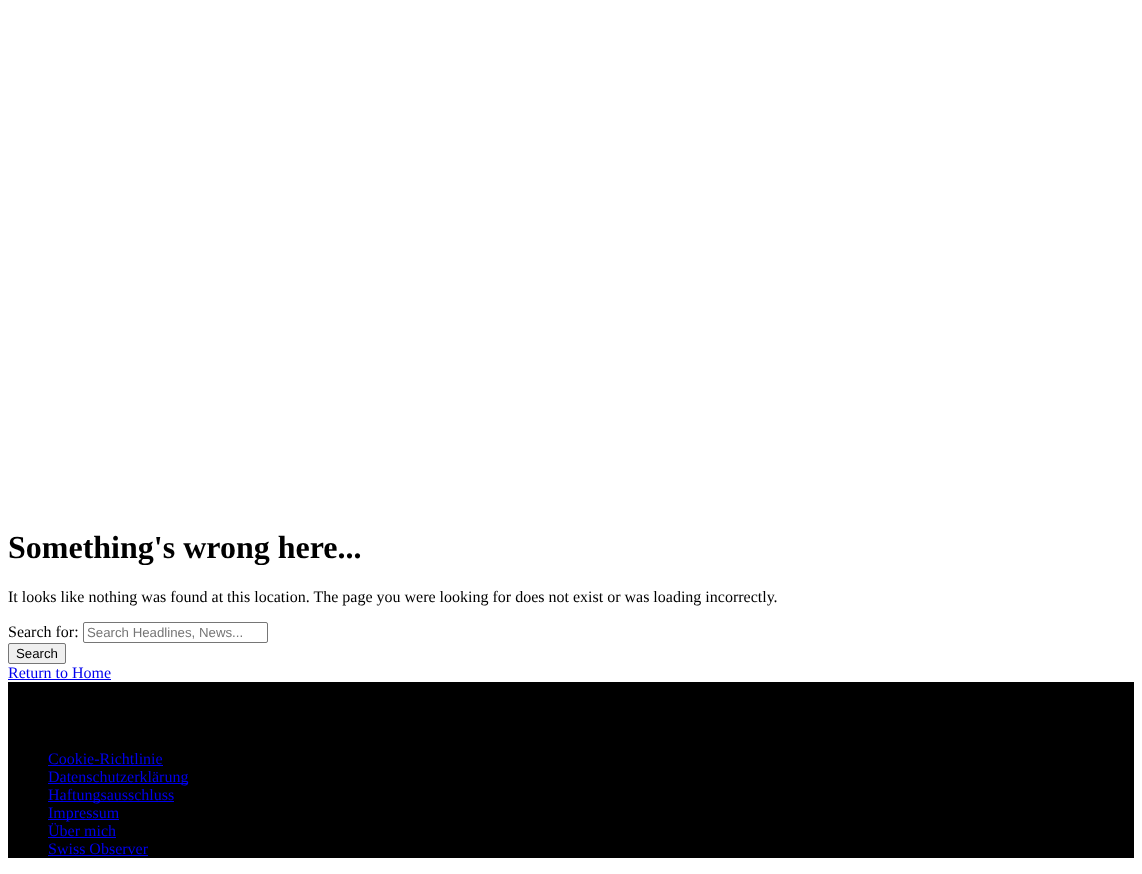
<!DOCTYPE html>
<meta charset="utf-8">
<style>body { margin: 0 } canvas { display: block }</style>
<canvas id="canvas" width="1142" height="874"></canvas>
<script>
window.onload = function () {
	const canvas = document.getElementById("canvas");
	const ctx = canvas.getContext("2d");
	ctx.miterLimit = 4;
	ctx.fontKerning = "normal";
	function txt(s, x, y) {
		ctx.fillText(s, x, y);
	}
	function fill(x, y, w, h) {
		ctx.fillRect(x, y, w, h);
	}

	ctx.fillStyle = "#FFFFFF";
	fill(0, 0, 1142, 874);
	ctx.beginPath();
	ctx.roundRect(83.5, 622.5, 184, 20, 1.5);
	ctx.strokeStyle = "#767676";
	ctx.stroke();
	ctx.fillStyle = "#EFEFEF";
	ctx.beginPath();
	ctx.roundRect(8.5, 643.5, 57, 20, 1.5);
	ctx.fill();
	ctx.stroke();
	ctx.fillStyle = "#0000EE";
	fill(8, 679, 103, 1);
	ctx.fillStyle = "#000000";
	fill(8, 682, 1126, 176);
	ctx.fillStyle = "#0000EE";
	fill(48, 765, 115, 1);
	fill(48, 783, 140, 1);
	fill(48, 801, 126, 1);
	fill(48, 819, 71, 1);
	fill(48, 837, 68, 1);
	fill(48, 855, 100, 1);
	ctx.font = "bold 32px Liberation Serif";
	ctx.fillStyle = "#000000";
	txt("Something's wrong here...", 8, 558);
	ctx.font = "16px Liberation Serif";
	txt("It looks like nothing was found at this location. The page you were looking for does not exist or was loading incorrectly.", 8, 602);
	txt("Search for:", 8, 637);
	ctx.font = "13.25px Liberation Sans";
	ctx.fillStyle = "#757575";
	txt("Search Headlines, News...", 87, 637);
	ctx.fillStyle = "#000000";
	txt("Search", 16, 658);
	ctx.font = "16px Liberation Serif";
	ctx.fillStyle = "#0000EE";
	txt("Return to Home", 8, 678);
	txt("Cookie-Richtlinie", 48, 764);
	txt("Datenschutzerklärung", 48, 782);
	txt("Haftungsausschluss", 48, 800);
	txt("Impressum", 48, 818);
	txt("Über mich", 48, 836);
	txt("Swiss Observer", 48, 854);
};
</script>
